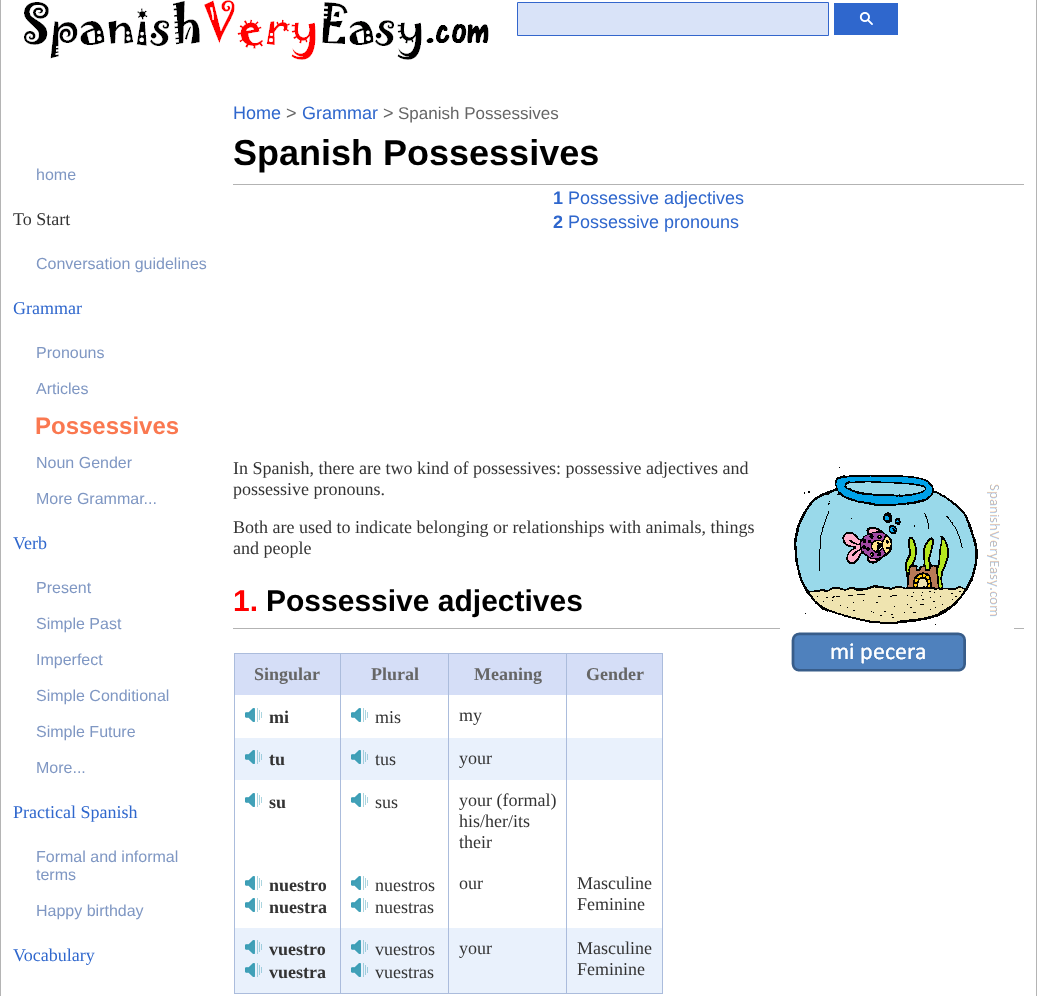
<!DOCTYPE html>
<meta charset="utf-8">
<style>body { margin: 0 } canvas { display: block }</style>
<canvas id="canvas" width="1037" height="996"></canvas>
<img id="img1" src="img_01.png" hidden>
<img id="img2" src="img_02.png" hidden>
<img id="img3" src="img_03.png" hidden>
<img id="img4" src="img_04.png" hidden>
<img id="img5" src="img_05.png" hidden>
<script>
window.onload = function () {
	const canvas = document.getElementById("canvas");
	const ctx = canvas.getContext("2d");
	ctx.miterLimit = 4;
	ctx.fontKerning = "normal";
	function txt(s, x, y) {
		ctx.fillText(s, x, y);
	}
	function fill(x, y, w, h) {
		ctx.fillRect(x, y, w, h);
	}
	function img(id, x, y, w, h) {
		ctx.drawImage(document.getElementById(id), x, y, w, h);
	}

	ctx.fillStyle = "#FFFFFF";
	fill(0, 0, 1037, 996);
	ctx.fillStyle = "#B4B4B4";
	fill(1036, 0, 1, 996);
	fill(0, 0, 1, 996);
	img("img1", 24, 0, 465, 60);
	ctx.fillStyle = "#D9E3F8";
	ctx.beginPath();
	ctx.rect(517.5, 2.5, 311, 33);
	ctx.fill();
	ctx.strokeStyle = "#3366CC";
	ctx.stroke();
	ctx.fillStyle = "#2F67CD";
	fill(834, 3, 64, 32);
	img("img2", 859, 12, 14, 13);
	ctx.fillStyle = "#B3B3B3";
	fill(233, 184, 791, 1);
	fill(233, 628, 791, 1);
	img("img3", 780, 467, 234, 205);
	ctx.fillStyle = "#ABBCDC";
	fill(234, 653, 429, 1);
	fill(662, 653, 1, 341);
	fill(234, 993, 429, 1);
	fill(234, 653, 1, 341);
	ctx.fillStyle = "#D5DEF7";
	fill(235, 654, 105, 41);
	fill(341, 654, 107, 41);
	fill(449, 654, 117, 41);
	fill(567, 654, 95, 41);
	img("img4", 245, 708, 17, 14);
	img("img4", 351, 708, 17, 14);
	ctx.fillStyle = "#E9F1FC";
	fill(235, 738, 427, 42);
	img("img5", 245, 750, 17, 14);
	img("img5", 351, 750, 17, 14);
	img("img4", 245, 793, 17, 14);
	img("img4", 351, 793, 17, 14);
	img("img4", 245, 876, 17, 14);
	img("img4", 245, 898, 17, 14);
	img("img4", 351, 876, 17, 14);
	img("img4", 351, 898, 17, 14);
	fill(235, 928, 427, 65);
	img("img5", 245, 940, 17, 14);
	img("img5", 245, 963, 17, 14);
	ctx.fillStyle = "#ABBCDC";
	fill(340, 653, 1, 341);
	img("img5", 351, 940, 17, 14);
	img("img5", 351, 963, 17, 14);
	fill(448, 653, 1, 341);
	fill(566, 653, 1, 341);
	ctx.font = "16px Liberation Sans";
	ctx.fillStyle = "#7F97C3";
	txt("home", 36, 180);
	ctx.font = "18px Liberation Serif";
	ctx.fillStyle = "#333333";
	txt("To Start", 13, 225);
	ctx.font = "16px Liberation Sans";
	ctx.fillStyle = "#7F97C3";
	txt("Conversation guidelines", 36, 269);
	ctx.font = "18px Liberation Serif";
	ctx.fillStyle = "#2F67CD";
	txt("Grammar", 13, 314);
	ctx.font = "16px Liberation Sans";
	ctx.fillStyle = "#7F97C3";
	txt("Pronouns", 36, 358);
	txt("Articles", 36, 394);
	ctx.font = "bold 24px Liberation Sans";
	ctx.fillStyle = "#FA7850";
	txt("Possessives", 35, 434);
	ctx.font = "16px Liberation Sans";
	ctx.fillStyle = "#7F97C3";
	txt("Noun Gender", 36, 468);
	txt("More Grammar...", 36, 504);
	ctx.font = "18px Liberation Serif";
	ctx.fillStyle = "#2F67CD";
	txt("Verb", 13, 549);
	ctx.font = "16px Liberation Sans";
	ctx.fillStyle = "#7F97C3";
	txt("Present", 36, 593);
	txt("Simple Past", 36, 629);
	txt("Imperfect", 36, 665);
	txt("Simple Conditional", 36, 701);
	txt("Simple Future", 36, 737);
	txt("More...", 36, 773);
	ctx.font = "18px Liberation Serif";
	ctx.fillStyle = "#2F67CD";
	txt("Practical Spanish", 13, 818);
	ctx.font = "16px Liberation Sans";
	ctx.fillStyle = "#7F97C3";
	txt("Formal and informal", 36, 862);
	txt("terms", 36, 880);
	txt("Happy birthday", 36, 916);
	ctx.font = "18px Liberation Serif";
	ctx.fillStyle = "#2F67CD";
	txt("Vocabulary", 13, 961);
	ctx.font = "18px Liberation Sans";
	txt("Home", 233, 119);
	ctx.fillStyle = "#666666";
	txt(">", 286, 119);
	ctx.fillStyle = "#2F67CD";
	txt("Grammar", 302, 119);
	ctx.fillStyle = "#666666";
	txt(">", 383, 119);
	ctx.font = "17px Liberation Sans";
	txt("Spanish Possessives", 398, 119);
	ctx.font = "bold 36px Liberation Sans";
	ctx.fillStyle = "#000000";
	txt("Spanish Possessives", 233, 165);
	ctx.font = "bold 18px Liberation Sans";
	ctx.fillStyle = "#2F67CD";
	txt("1", 553, 204);
	ctx.font = "18px Liberation Sans";
	txt("Possessive adjectives", 568, 204);
	ctx.font = "bold 18px Liberation Sans";
	txt("2", 553, 228);
	ctx.font = "18px Liberation Sans";
	txt("Possessive pronouns", 568, 228);
	ctx.font = "18px Liberation Serif";
	ctx.fillStyle = "#333333";
	txt("In Spanish, there are two kind of possessives: possessive adjectives and", 233, 474);
	txt("possessive pronouns.", 233, 495);
	txt("Both are used to indicate belonging or relationships with animals, things", 233, 533);
	txt("and people", 233, 554);
	ctx.font = "bold 30px Liberation Sans";
	ctx.fillStyle = "#FF0000";
	txt("1.", 233, 611);
	ctx.fillStyle = "#000000";
	txt("Possessive adjectives", 266, 611);
	ctx.font = "bold 18px Liberation Serif";
	ctx.fillStyle = "#666666";
	txt("Singular", 254, 680);
	txt("Plural", 371, 680);
	txt("Meaning", 474, 680);
	txt("Gender", 586, 680);
	ctx.fillStyle = "#333333";
	txt("mi", 269, 723);
	ctx.font = "18px Liberation Serif";
	txt("mis", 375, 723);
	txt("my", 459, 721);
	ctx.font = "bold 18px Liberation Serif";
	txt("tu", 269, 765);
	ctx.font = "18px Liberation Serif";
	txt("tus", 375, 765);
	txt("your", 459, 764);
	ctx.font = "bold 18px Liberation Serif";
	txt("su", 269, 808);
	ctx.font = "18px Liberation Serif";
	txt("sus", 375, 808);
	txt("your (formal)", 459, 806);
	txt("his/her/its", 459, 827);
	txt("their", 459, 848);
	ctx.font = "bold 18px Liberation Serif";
	txt("nuestro", 269, 891);
	txt("nuestra", 269, 913);
	ctx.font = "18px Liberation Serif";
	txt("nuestros", 375, 891);
	txt("nuestras", 375, 913);
	txt("our", 459, 889);
	txt("Masculine", 577, 889);
	txt("Feminine", 577, 910);
	ctx.font = "bold 18px Liberation Serif";
	txt("vuestro", 269, 955);
	txt("vuestra", 269, 978);
	ctx.font = "18px Liberation Serif";
	txt("vuestros", 375, 955);
	txt("vuestras", 375, 978);
	txt("your", 459, 954);
	txt("Masculine", 577, 954);
	txt("Feminine", 577, 975);
};
</script>
